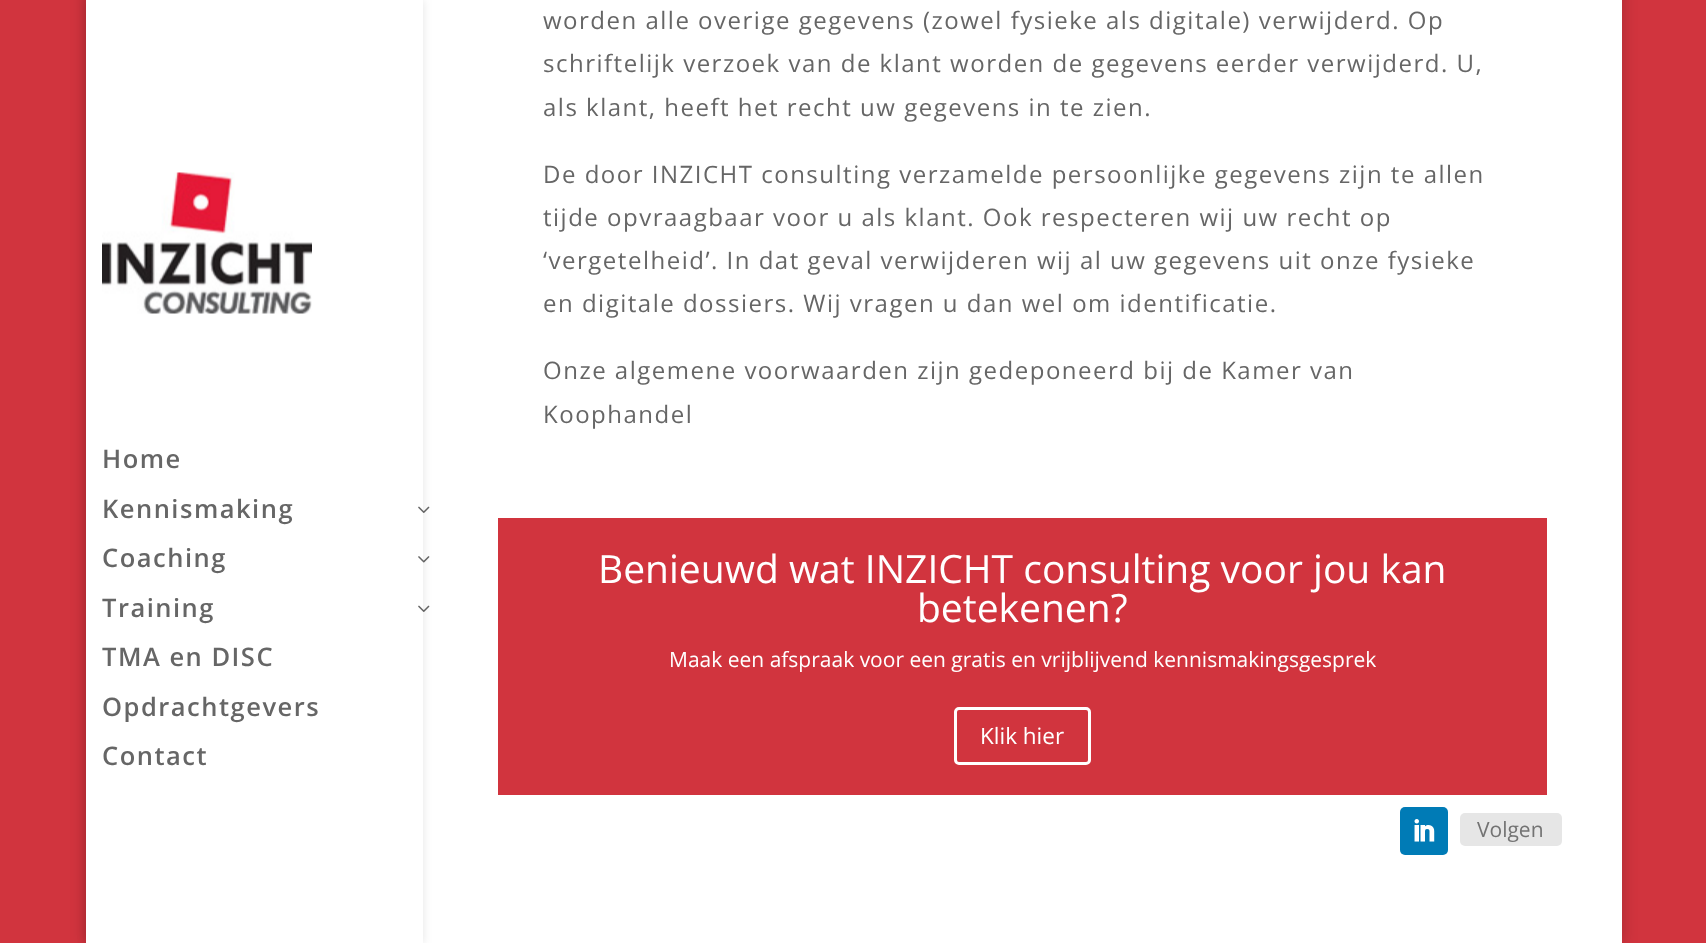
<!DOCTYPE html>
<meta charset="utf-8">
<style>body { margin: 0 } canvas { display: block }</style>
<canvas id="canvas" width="1706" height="943"></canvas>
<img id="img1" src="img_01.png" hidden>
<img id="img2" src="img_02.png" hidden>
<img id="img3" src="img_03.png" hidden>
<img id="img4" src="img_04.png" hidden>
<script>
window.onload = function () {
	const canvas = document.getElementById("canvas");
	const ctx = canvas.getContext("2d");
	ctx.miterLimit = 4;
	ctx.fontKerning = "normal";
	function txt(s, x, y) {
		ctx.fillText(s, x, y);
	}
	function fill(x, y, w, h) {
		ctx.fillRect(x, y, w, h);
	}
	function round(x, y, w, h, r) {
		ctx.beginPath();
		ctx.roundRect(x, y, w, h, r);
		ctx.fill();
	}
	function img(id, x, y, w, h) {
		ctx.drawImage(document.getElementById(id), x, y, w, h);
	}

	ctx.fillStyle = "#D1343E";
	fill(0, 0, 1706, 943);
	ctx.fillStyle = "rgba(0, 0, 0, 0.2)";
	ctx.filter = "blur(7.5px)";
	ctx.beginPath();
	ctx.rect(86, -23, 1536, 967);
	ctx.fill();
	ctx.filter = "none";
	ctx.fillStyle = "#FFFFFF";
	fill(423, 0, 1199, 914);
	fill(423, 914, 1199, 29);
	ctx.fillStyle = "rgba(0, 0, 0, 0.1)";
	ctx.filter = "blur(5px)";
	ctx.beginPath();
	ctx.rect(86, 0, 337, 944);
	ctx.fill();
	ctx.filter = "none";
	ctx.fillStyle = "#FFFFFF";
	fill(86, 0, 337, 943);
	img("img1", 102, 172, 210, 142);
	img("img2", 418, 506, 12, 7);
	img("img3", 418, 556, 12, 7);
	img("img2", 418, 605, 12, 7);
	ctx.fillStyle = "#D1343E";
	fill(498, 518, 1049, 277);
	ctx.beginPath();
	ctx.roundRect(955.5, 708.5, 134, 55, 3.5);
	ctx.strokeStyle = "#FFFFFF";
	ctx.lineWidth = 3;
	ctx.stroke();
	ctx.fillStyle = "#007BB6";
	round(1400, 807, 48, 48, 5);
	img("img4", 1414, 819, 21, 23);
	ctx.fillStyle = "#E6E6E6";
	round(1460, 813, 102, 33, 5);
	ctx.letterSpacing = "1.5px";
	ctx.font = "600 25.5px Open Sans";
	ctx.fillStyle = "#666666";
	txt("Home", 102, 468);
	txt("Kennismaking", 102, 518);
	txt("Coaching", 102, 567);
	txt("Training", 102, 617);
	txt("TMA en DISC", 102, 666);
	txt("Opdrachtgevers", 102, 716);
	txt("Contact", 102, 765);
	ctx.font = "24px Open Sans";
	txt("worden alle overige gegevens (zowel fysieke als digitale) verwijderd. Op", 543, 29);
	txt("schriftelijk verzoek van de klant worden de gegevens eerder verwijderd. U,", 543, 72);
	txt("als klant, heeft het recht uw gegevens in te zien.", 543, 116);
	txt("De door INZICHT consulting verzamelde persoonlijke gegevens zijn te allen", 543, 183);
	txt("tijde opvraagbaar voor u als klant. Ook respecteren wij uw recht op", 543, 226);
	txt("‘vergetelheid’. In dat geval verwijderen wij al uw gegevens uit onze fysieke", 543, 269);
	txt("en digitale dossiers. Wij vragen u dan wel om identificatie.", 543, 312);
	txt("Onze algemene voorwaarden zijn gedeponeerd bij de Kamer van", 543, 379);
	txt("Koophandel", 543, 423);
	ctx.letterSpacing = "0px";
	ctx.font = "39px Open Sans";
	ctx.fillStyle = "#FFFFFF";
	txt("Benieuwd wat INZICHT consulting voor jou kan", 598, 583);
	txt("betekenen?", 917, 622);
	ctx.font = "21px Open Sans";
	txt("Maak een afspraak voor een gratis en vrijblijvend kennismakingsgesprek", 669, 667);
	ctx.font = "22.5px Open Sans";
	txt("Klik hier", 980, 744);
	ctx.font = "21px Open Sans";
	ctx.fillStyle = "#737373";
	txt("Volgen", 1477, 837);
};
</script>
